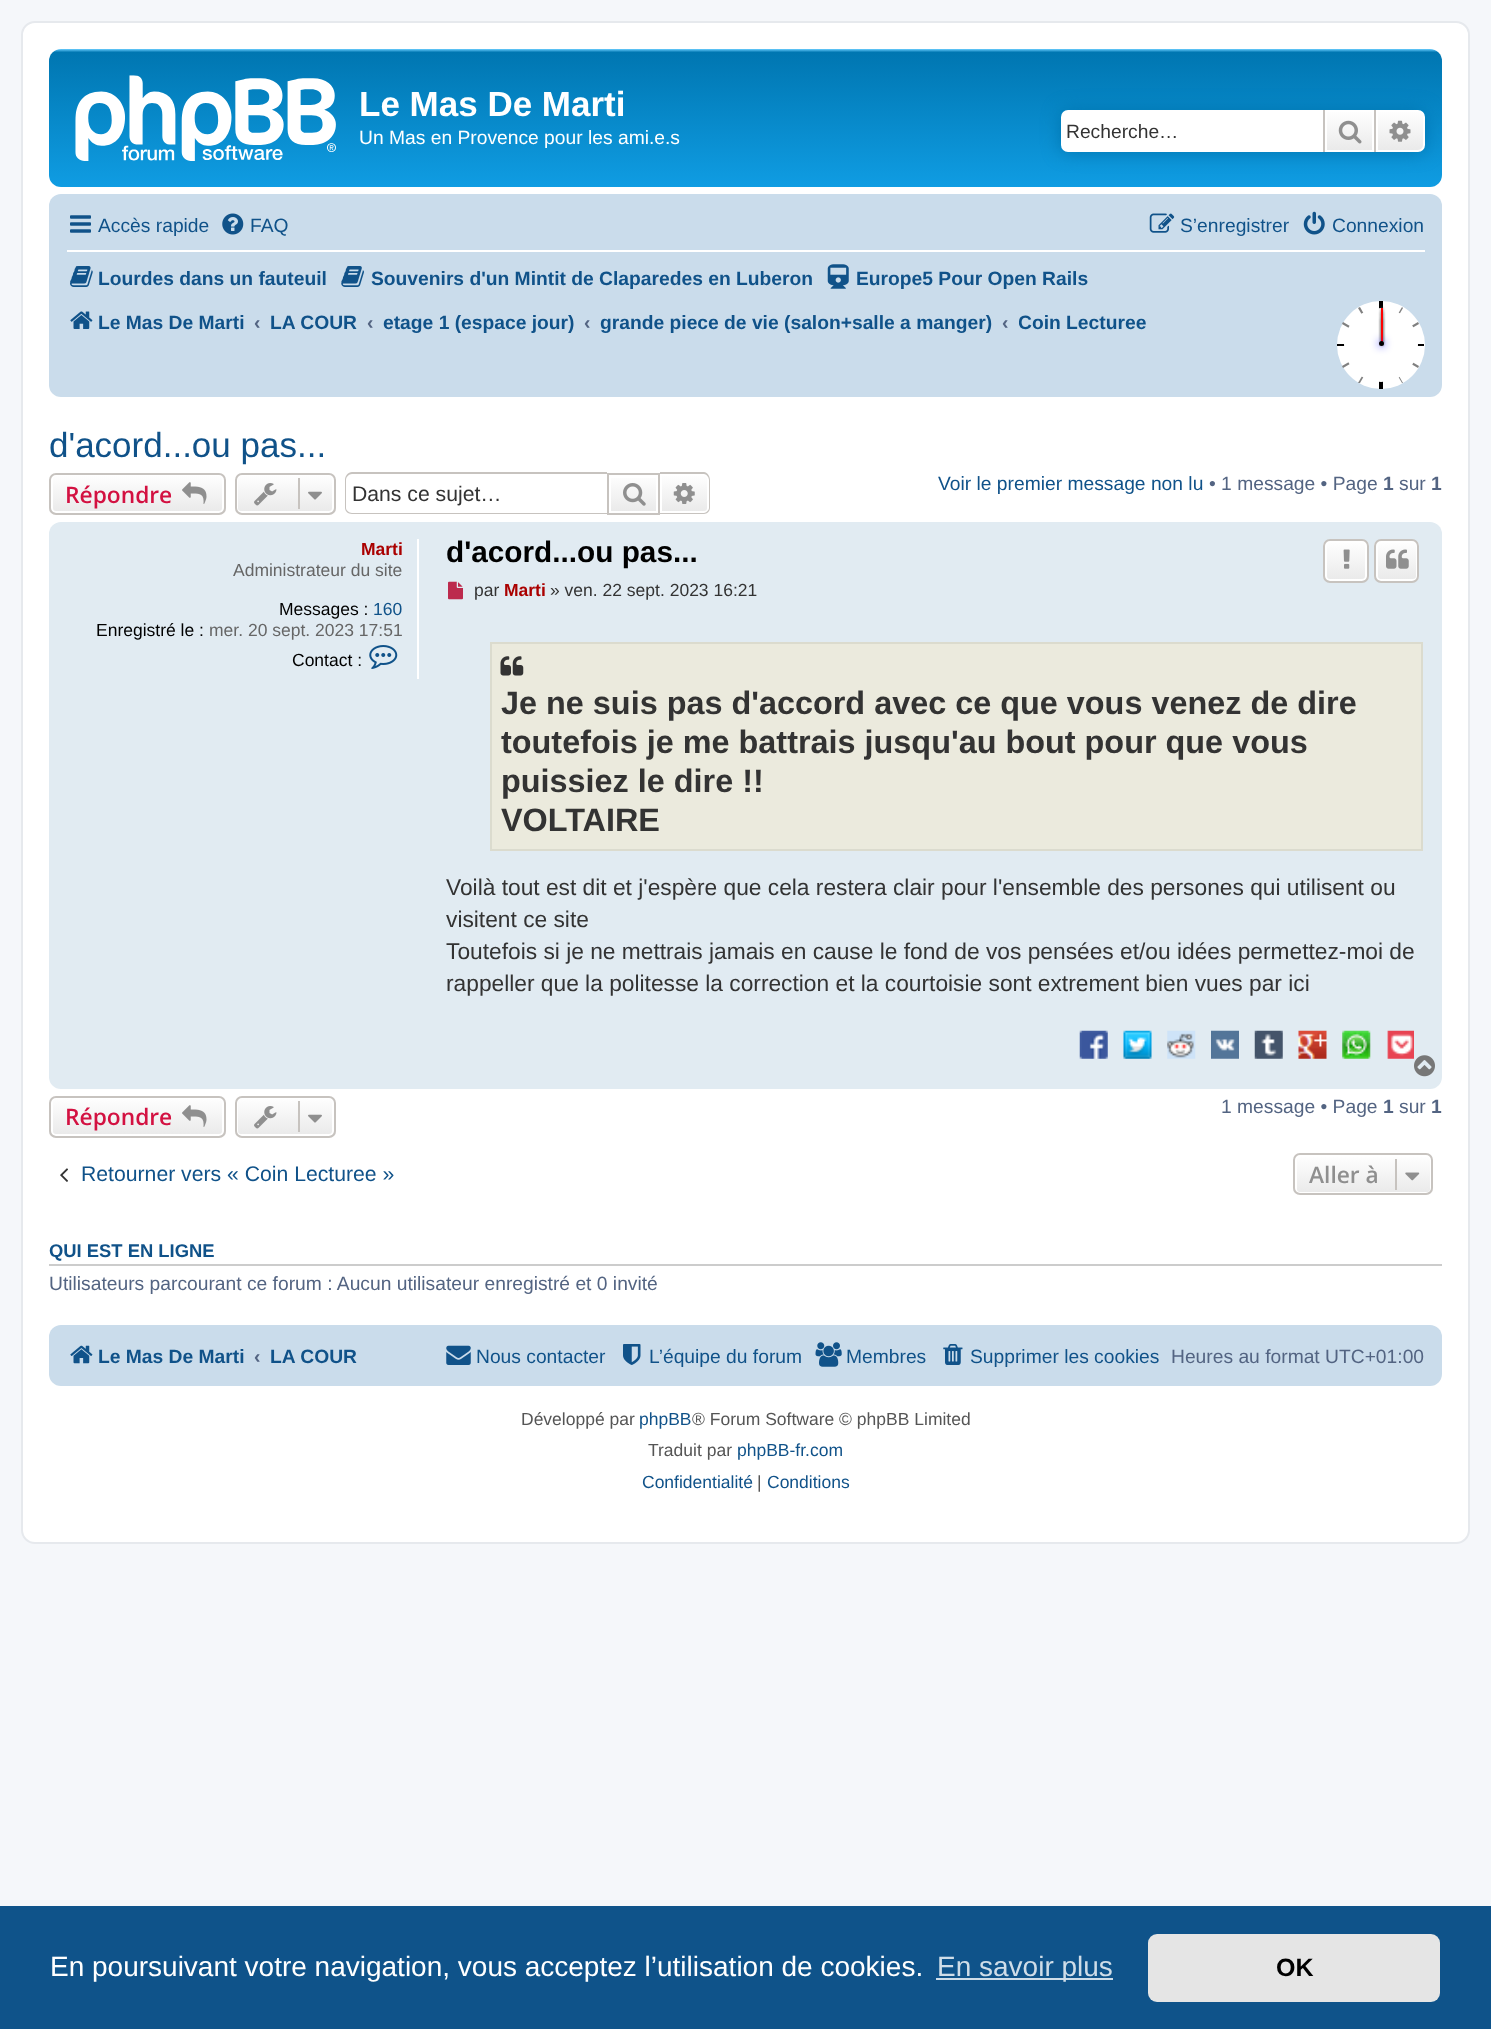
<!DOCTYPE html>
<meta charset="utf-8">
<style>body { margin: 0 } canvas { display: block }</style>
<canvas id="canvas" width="1491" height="2029"></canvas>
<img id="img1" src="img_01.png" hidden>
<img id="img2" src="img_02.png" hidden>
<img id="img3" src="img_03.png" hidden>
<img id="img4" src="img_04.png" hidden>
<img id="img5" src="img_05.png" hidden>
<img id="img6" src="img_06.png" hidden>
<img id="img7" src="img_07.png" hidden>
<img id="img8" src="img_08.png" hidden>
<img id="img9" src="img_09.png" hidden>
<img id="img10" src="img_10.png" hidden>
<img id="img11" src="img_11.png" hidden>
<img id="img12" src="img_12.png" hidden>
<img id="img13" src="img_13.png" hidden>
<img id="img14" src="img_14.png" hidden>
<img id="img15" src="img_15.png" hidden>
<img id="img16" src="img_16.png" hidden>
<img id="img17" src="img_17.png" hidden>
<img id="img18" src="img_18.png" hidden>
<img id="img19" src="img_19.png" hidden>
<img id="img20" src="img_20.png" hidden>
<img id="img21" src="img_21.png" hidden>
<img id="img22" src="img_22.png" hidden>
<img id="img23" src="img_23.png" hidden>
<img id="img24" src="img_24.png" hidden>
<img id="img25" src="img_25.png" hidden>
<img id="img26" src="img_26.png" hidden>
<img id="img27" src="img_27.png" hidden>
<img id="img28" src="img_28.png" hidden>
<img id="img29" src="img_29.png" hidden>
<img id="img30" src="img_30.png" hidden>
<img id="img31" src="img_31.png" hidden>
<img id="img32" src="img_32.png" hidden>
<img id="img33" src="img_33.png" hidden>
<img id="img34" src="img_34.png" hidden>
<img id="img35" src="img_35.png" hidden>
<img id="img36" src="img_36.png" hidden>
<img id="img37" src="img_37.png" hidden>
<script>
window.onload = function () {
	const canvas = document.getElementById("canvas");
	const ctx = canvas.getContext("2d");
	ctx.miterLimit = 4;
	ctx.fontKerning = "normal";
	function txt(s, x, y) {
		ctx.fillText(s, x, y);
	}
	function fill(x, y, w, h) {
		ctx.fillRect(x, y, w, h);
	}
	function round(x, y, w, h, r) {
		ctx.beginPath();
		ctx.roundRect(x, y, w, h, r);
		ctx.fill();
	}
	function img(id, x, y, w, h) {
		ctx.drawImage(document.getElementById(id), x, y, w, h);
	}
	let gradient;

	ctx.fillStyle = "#F5F7FA";
	fill(0, 0, 1491, 2029);
	ctx.fillStyle = "#FFFFFF";
	ctx.beginPath();
	ctx.roundRect(22, 22, 1447, 1521, 13);
	ctx.fill();
	ctx.strokeStyle = "#E6E9ED";
	ctx.lineWidth = 2;
	ctx.stroke();
	gradient = ctx.createLinearGradient(746, 49, 746, 210);
	gradient.addColorStop(0, "#6ACEFF");
	gradient.addColorStop(0.02, "#0076B1");
	gradient.addColorStop(1, "#12A3EB");
	ctx.fillStyle = gradient;
	round(49, 49, 1393, 138, 12);
	img("img1", 75, 75, 261, 86);
	ctx.fillStyle = "#0075B0";
	ctx.filter = "blur(9px)";
	ctx.beginPath();
	ctx.roundRect(1061, 110, 364, 42, 7);
	ctx.fill();
	ctx.filter = "none";
	ctx.fillStyle = "#FFFFFF";
	ctx.beginPath();
	ctx.roundRect(1061, 110, 262, 42, [7, 0, 0, 7]);
	ctx.fill();
	gradient = ctx.createLinearGradient(1349, 110, 1349, 152);
	gradient.addColorStop(0, "#FFFFFF");
	gradient.addColorStop(1, "#E9E9E9");
	ctx.fillStyle = gradient;
	fill(1327, 112, 45, 38);
	ctx.strokeStyle = "#FFFFFF";
	ctx.strokeRect(1326, 111, 47, 40);
	ctx.fillStyle = "#C7C3BF";
	fill(1374, 110, 2, 42);
	fill(1323, 110, 2, 42);
	img("img2", 1338, 120, 24, 24);
	gradient = ctx.createLinearGradient(1400, 110, 1400, 152);
	gradient.addColorStop(0, "#FFFFFF");
	gradient.addColorStop(1, "#E9E9E9");
	ctx.fillStyle = gradient;
	ctx.beginPath();
	ctx.roundRect(1377, 111, 47, 40, [0, 6, 6, 0]);
	ctx.fill();
	ctx.stroke();
	img("img3", 1389, 120, 22, 22);
	ctx.fillStyle = "#CADCEB";
	round(49, 194, 1393, 203, 12);
	img("img4", 70, 215, 21, 18);
	img("img5", 222, 213, 22, 22);
	img("img6", 1149, 213, 26, 20);
	img("img7", 1303, 211, 22, 24);
	ctx.fillStyle = "#FFFFFF";
	fill(67, 250, 1358, 2);
	img("img8", 70, 266, 23, 21);
	img("img9", 341, 266, 23, 21);
	img("img10", 827, 264, 22, 25);
	img("img11", 70, 311, 23, 18);
	ctx.beginPath();
	ctx.arc(1381, 345, 44, 0, Math.PI * 2);
	ctx.fill();
	ctx.fillStyle = "#000000";
	fill(1379, 301, 4, 88);
	ctx.fillStyle = "#808080";
	ctx.beginPath();
	ctx.moveTo(1402, 307);
	ctx.lineTo(1403, 308);
	ctx.lineTo(1360, 383);
	ctx.lineTo(1358, 383);
	ctx.closePath();
	ctx.fill();
	ctx.beginPath();
	ctx.moveTo(1418, 322);
	ctx.lineTo(1419, 324);
	ctx.lineTo(1343, 368);
	ctx.lineTo(1342, 366);
	ctx.closePath();
	ctx.fill();
	ctx.beginPath();
	ctx.moveTo(1419, 366);
	ctx.lineTo(1418, 368);
	ctx.lineTo(1342, 324);
	ctx.lineTo(1343, 322);
	ctx.closePath();
	ctx.fill();
	ctx.beginPath();
	ctx.moveTo(1403, 383);
	ctx.lineTo(1402, 383);
	ctx.lineTo(1358, 308);
	ctx.lineTo(1360, 307);
	ctx.closePath();
	ctx.fill();
	ctx.fillStyle = "#000000";
	fill(1337, 344, 87, 2);
	ctx.fillStyle = "#FFFFFF";
	ctx.beginPath();
	ctx.arc(1381, 345, 37, 0, Math.PI * 2);
	ctx.fill();
	ctx.fillStyle = "#808080";
	ctx.filter = "blur(1.5px)";
	ctx.beginPath();
	ctx.rect(1381, 308, 2, 37);
	ctx.fill();
	ctx.filter = "none";
	ctx.filter = "blur(1.5px)";
	ctx.beginPath();
	ctx.rect(1381, 312, 2, 33);
	ctx.fill();
	ctx.filter = "none";
	ctx.filter = "blur(1.5px)";
	ctx.beginPath();
	ctx.rect(1381, 319, 2, 22);
	ctx.fill();
	ctx.filter = "none";
	ctx.fillStyle = "#FF0000";
	fill(1381, 308, 2, 37);
	ctx.fillStyle = "#0000FF";
	ctx.filter = "blur(4.5px)";
	ctx.beginPath();
	ctx.roundRect(1379, 341, 5, 5, 2.5);
	ctx.fill();
	ctx.filter = "none";
	ctx.fillStyle = "#000000";
	ctx.beginPath();
	ctx.arc(1381.5, 343.5, 2.5, 0, Math.PI * 2);
	ctx.fill();
	ctx.save();
	ctx.beginPath();
	ctx.roundRect(49, 473, 177, 42, 7);
	ctx.clip();
	gradient = ctx.createLinearGradient(137, 474, 137, 513);
	gradient.addColorStop(0, "#FFFFFF");
	gradient.addColorStop(1, "#E9E9E9");
	ctx.fillStyle = gradient;
	fill(49, 474, 177, 39);
	ctx.restore();
	ctx.beginPath();
	ctx.roundRect(52, 475, 171, 37, 4);
	ctx.stroke();
	ctx.beginPath();
	ctx.roundRect(50, 474, 175, 40, 6);
	ctx.strokeStyle = "#C7C3BF";
	ctx.stroke();
	img("img12", 182, 482, 25, 22);
	ctx.save();
	ctx.beginPath();
	ctx.roundRect(235, 473, 101, 42, 7);
	ctx.clip();
	gradient = ctx.createLinearGradient(285, 474, 285, 513);
	gradient.addColorStop(0, "#FFFFFF");
	gradient.addColorStop(1, "#E9E9E9");
	ctx.fillStyle = gradient;
	fill(235, 474, 101, 39);
	ctx.restore();
	ctx.beginPath();
	ctx.roundRect(237, 475, 96, 37, 4);
	ctx.strokeStyle = "#FFFFFF";
	ctx.stroke();
	ctx.beginPath();
	ctx.roundRect(236, 474, 99, 40, 6);
	ctx.strokeStyle = "#C7C3BF";
	ctx.stroke();
	img("img13", 254, 483, 23, 23);
	ctx.fillStyle = "#C7C3BF";
	fill(298, 478, 2, 31);
	img("img14", 308, 491, 14, 9);
	ctx.beginPath();
	ctx.moveTo(352, 472);
	ctx.lineTo(607, 472);
	ctx.lineTo(607, 514);
	ctx.lineTo(352, 514);
	ctx.bezierCurveTo(348, 514, 345, 511, 345, 508);
	ctx.lineTo(345, 480);
	ctx.bezierCurveTo(345, 476, 348, 472, 352, 472);
	ctx.closePath();
	ctx.moveTo(352, 474);
	ctx.lineTo(607, 474);
	ctx.lineTo(607, 513);
	ctx.lineTo(352, 513);
	ctx.bezierCurveTo(349, 513, 346, 510, 346, 508);
	ctx.lineTo(346, 480);
	ctx.bezierCurveTo(346, 477, 349, 474, 352, 474);
	ctx.closePath();
	ctx.fill("evenodd");
	gradient = ctx.createLinearGradient(634, 474, 634, 513);
	gradient.addColorStop(0, "#FFFFFF");
	gradient.addColorStop(1, "#E9E9E9");
	ctx.fillStyle = gradient;
	fill(611, 478, 45, 33);
	ctx.strokeRect(608, 474, 51, 40);
	img("img15", 623, 483, 23, 23);
	gradient = ctx.createLinearGradient(684, 474, 684, 513);
	gradient.addColorStop(0, "#FFFFFF");
	gradient.addColorStop(1, "#E9E9E9");
	ctx.fillStyle = gradient;
	ctx.beginPath();
	ctx.roundRect(661, 475, 47, 37, [0, 4, 4, 0]);
	ctx.fill();
	ctx.strokeStyle = "#FFFFFF";
	ctx.stroke();
	ctx.fillStyle = "#C7C3BF";
	ctx.beginPath();
	ctx.moveTo(660, 472);
	ctx.lineTo(704, 472);
	ctx.bezierCurveTo(707, 472, 710, 476, 710, 480);
	ctx.lineTo(710, 508);
	ctx.bezierCurveTo(710, 511, 707, 514, 704, 514);
	ctx.lineTo(660, 514);
	ctx.closePath();
	ctx.moveTo(660, 474);
	ctx.lineTo(704, 474);
	ctx.bezierCurveTo(706, 474, 709, 477, 709, 480);
	ctx.lineTo(709, 508);
	ctx.bezierCurveTo(709, 510, 706, 513, 704, 513);
	ctx.lineTo(660, 513);
	ctx.closePath();
	ctx.fill("evenodd");
	img("img16", 673, 483, 22, 21);
	ctx.fillStyle = "#E1EBF2";
	round(49, 522, 1393, 567, 12);
	ctx.fillStyle = "#FFFFFF";
	fill(417, 539, 2, 140);
	img("img17", 369, 645, 29, 24);
	ctx.save();
	ctx.beginPath();
	ctx.roundRect(1323, 539, 46, 44, 7);
	ctx.clip();
	gradient = ctx.createLinearGradient(1346, 541, 1346, 581);
	gradient.addColorStop(0, "#FFFFFF");
	gradient.addColorStop(1, "#E9E9E9");
	ctx.fillStyle = gradient;
	fill(1323, 541, 46, 40);
	ctx.restore();
	ctx.beginPath();
	ctx.roundRect(1326, 542, 40, 38, 4);
	ctx.stroke();
	ctx.beginPath();
	ctx.roundRect(1324, 540, 44, 42, 6);
	ctx.strokeStyle = "#C7C3BF";
	ctx.stroke();
	img("img18", 1343, 549, 7, 20);
	ctx.save();
	ctx.beginPath();
	ctx.roundRect(1374, 539, 45, 44, 7);
	ctx.clip();
	gradient = ctx.createLinearGradient(1397, 541, 1397, 581);
	gradient.addColorStop(0, "#FFFFFF");
	gradient.addColorStop(1, "#E9E9E9");
	ctx.fillStyle = gradient;
	fill(1374, 541, 45, 40);
	ctx.restore();
	ctx.beginPath();
	ctx.roundRect(1377, 542, 40, 38, 4);
	ctx.strokeStyle = "#FFFFFF";
	ctx.stroke();
	ctx.beginPath();
	ctx.roundRect(1375, 540, 43, 42, 6);
	ctx.strokeStyle = "#C7C3BF";
	ctx.stroke();
	img("img19", 1386, 549, 23, 20);
	img("img20", 448, 581, 15, 19);
	ctx.fillStyle = "#EBEADD";
	ctx.beginPath();
	ctx.rect(491, 643, 931, 207);
	ctx.fill();
	ctx.strokeStyle = "#DBDBCE";
	ctx.stroke();
	img("img21", 500, 656, 24, 20);
	img("img22", 1079, 1030, 29, 29);
	img("img23", 1123, 1030, 29, 29);
	img("img24", 1167, 1030, 29, 29);
	img("img25", 1211, 1030, 28, 29);
	img("img26", 1254, 1030, 29, 29);
	img("img27", 1298, 1030, 29, 29);
	img("img28", 1342, 1030, 29, 29);
	img("img29", 1387, 1030, 27, 29);
	img("img30", 1414, 1055, 21, 22);
	ctx.save();
	ctx.beginPath();
	ctx.roundRect(49, 1096, 177, 42, 7);
	ctx.clip();
	gradient = ctx.createLinearGradient(137, 1097, 137, 1136);
	gradient.addColorStop(0, "#FFFFFF");
	gradient.addColorStop(1, "#E9E9E9");
	ctx.fillStyle = gradient;
	fill(49, 1097, 177, 39);
	ctx.restore();
	ctx.beginPath();
	ctx.roundRect(52, 1098, 171, 37, 4);
	ctx.strokeStyle = "#FFFFFF";
	ctx.stroke();
	ctx.beginPath();
	ctx.roundRect(50, 1097, 175, 40, 6);
	ctx.strokeStyle = "#C7C3BF";
	ctx.stroke();
	img("img12", 182, 1105, 25, 22);
	ctx.save();
	ctx.beginPath();
	ctx.roundRect(235, 1096, 101, 42, 7);
	ctx.clip();
	gradient = ctx.createLinearGradient(285, 1097, 285, 1136);
	gradient.addColorStop(0, "#FFFFFF");
	gradient.addColorStop(1, "#E9E9E9");
	ctx.fillStyle = gradient;
	fill(235, 1097, 101, 39);
	ctx.restore();
	ctx.beginPath();
	ctx.roundRect(237, 1098, 96, 37, 4);
	ctx.strokeStyle = "#FFFFFF";
	ctx.stroke();
	ctx.beginPath();
	ctx.roundRect(236, 1097, 99, 40, 6);
	ctx.strokeStyle = "#C7C3BF";
	ctx.stroke();
	img("img13", 254, 1106, 23, 23);
	ctx.fillStyle = "#C7C3BF";
	fill(298, 1101, 2, 31);
	img("img14", 308, 1114, 14, 9);
	img("img31", 60, 1168, 8, 14);
	ctx.save();
	ctx.beginPath();
	ctx.roundRect(1293, 1153, 140, 42, 7);
	ctx.clip();
	gradient = ctx.createLinearGradient(1363, 1155, 1363, 1194);
	gradient.addColorStop(0, "#FFFFFF");
	gradient.addColorStop(1, "#E9E9E9");
	ctx.fillStyle = gradient;
	fill(1293, 1155, 140, 39);
	ctx.restore();
	ctx.beginPath();
	ctx.roundRect(1296, 1156, 135, 37, 4);
	ctx.strokeStyle = "#FFFFFF";
	ctx.stroke();
	ctx.beginPath();
	ctx.roundRect(1294, 1154, 138, 40, 6);
	ctx.strokeStyle = "#C7C3BF";
	ctx.stroke();
	fill(1395, 1159, 2, 31);
	img("img32", 1405, 1172, 15, 9);
	ctx.fillStyle = "#CCCCCC";
	fill(49, 1264, 1393, 2);
	ctx.fillStyle = "#CADCEB";
	round(49, 1325, 1393, 61, 12);
	img("img33", 70, 1345, 23, 19);
	img("img34", 446, 1345, 25, 20);
	img("img35", 623, 1344, 18, 21);
	img("img36", 815, 1342, 27, 25);
	img("img37", 943, 1344, 20, 21);
	ctx.fillStyle = "#0F538A";
	fill(0, 1906, 1491, 123);
	ctx.fillStyle = "#CFDDE8";
	fill(936, 1978, 177, 2);
	ctx.fillStyle = "#E5E5E5";
	round(1148, 1934, 292, 68, 9);
	ctx.font = "bold 35px Liberation Sans";
	ctx.fillStyle = "#FFFFFF";
	txt("Le Mas De Marti", 359, 116);
	ctx.font = "19.25px Liberation Sans";
	txt("Un Mas en Provence pour les ami.e.s", 359, 144);
	ctx.fillStyle = "#333333";
	txt("Recherche…", 1066, 138);
	ctx.fillStyle = "#105289";
	txt("Accès rapide", 98, 232);
	txt("FAQ", 250, 232);
	txt("S’enregistrer", 1180, 232);
	txt("Connexion", 1332, 232);
	ctx.font = "bold 19.25px Liberation Sans";
	txt("Lourdes dans un fauteuil", 98, 285);
	txt("Souvenirs d'un Mintit de Claparedes en Luberon", 371, 285);
	txt("Europe5 Pour Open Rails", 856, 285);
	txt("Le Mas De Marti", 98, 329);
	ctx.fillStyle = "#536482";
	txt("‹", 254, 329);
	ctx.fillStyle = "#105289";
	txt("LA COUR", 270, 329);
	ctx.fillStyle = "#536482";
	txt("‹", 367, 329);
	ctx.fillStyle = "#105289";
	txt("etage 1 (espace jour)", 383, 329);
	ctx.fillStyle = "#536482";
	txt("‹", 584, 329);
	ctx.fillStyle = "#105289";
	txt("grande piece de vie (salon+salle a manger)", 600, 329);
	ctx.fillStyle = "#536482";
	txt("‹", 1002, 329);
	ctx.save();
	ctx.beginPath();
	ctx.rect(1019, 301, 127, 42);
	ctx.clip();
	ctx.fillStyle = "#105289";
	txt("Coin Lecturee", 1018, 329);
	ctx.restore();
	ctx.font = "35px Liberation Sans";
	ctx.fillStyle = "#105289";
	txt("d'acord...ou pas...", 49, 457);
	ctx.font = "600 22.75px Open Sans";
	ctx.fillStyle = "#D31141";
	txt("Répondre", 65, 503);
	ctx.font = "21.2px Liberation Sans";
	ctx.fillStyle = "#333333";
	txt("Dans ce sujet…", 352, 501);
	ctx.font = "19.25px Liberation Sans";
	ctx.fillStyle = "#105289";
	txt("Voir le premier message non lu", 938, 490);
	ctx.fillStyle = "#536482";
	txt("• 1 message • Page", 1209, 490);
	ctx.font = "bold 19.25px Liberation Sans";
	txt("1", 1383, 490);
	ctx.font = "19.25px Liberation Sans";
	txt("sur", 1399, 490);
	ctx.font = "bold 19.25px Liberation Sans";
	txt("1", 1431, 490);
	ctx.font = "bold 17.5px Liberation Sans";
	ctx.fillStyle = "#AA0000";
	txt("Marti", 361, 555);
	ctx.font = "17.5px Liberation Sans";
	ctx.fillStyle = "#666666";
	txt("Administrateur du site", 233, 576);
	ctx.fillStyle = "#000000";
	txt("Messages :", 279, 615);
	ctx.fillStyle = "#105289";
	txt("160", 373, 615);
	ctx.fillStyle = "#000000";
	txt("Enregistré le :", 96, 636);
	ctx.fillStyle = "#666666";
	txt("mer. 20 sept. 2023 17:51", 209, 636);
	ctx.fillStyle = "#000000";
	txt("Contact :", 292, 666);
	ctx.font = "bold 29.75px Liberation Sans";
	txt("d'acord...ou pas...", 446, 562);
	ctx.font = "17.5px Liberation Sans";
	ctx.fillStyle = "#333333";
	txt("par", 474, 596);
	ctx.font = "bold 17.5px Liberation Sans";
	ctx.fillStyle = "#AA0000";
	txt("Marti", 504, 596);
	ctx.font = "17.5px Liberation Sans";
	ctx.fillStyle = "#333333";
	txt("» ven. 22 sept. 2023 16:21", 550, 596);
	ctx.font = "bold 32.4px Liberation Sans";
	txt("Je ne suis pas d'accord avec ce que vous venez de dire", 501, 714);
	txt("toutefois je me battrais jusqu'au bout pour que vous", 501, 753);
	txt("puissiez le dire !!", 501, 792);
	txt("VOLTAIRE", 501, 831);
	ctx.font = "22.75px Liberation Sans";
	txt("Voilà tout est dit et j'espère que cela restera clair pour l'ensemble des persones qui utilisent ou", 446, 895);
	txt("visitent ce site", 446, 927);
	txt("Toutefois si je ne mettrais jamais en cause le fond de vos pensées et/ou idées permettez-moi de", 446, 959);
	txt("rappeller que la politesse la correction et la courtoisie sont extrement bien vues par ici", 446, 991);
	ctx.font = "600 22.75px Open Sans";
	ctx.fillStyle = "#D31141";
	txt("Répondre", 65, 1125);
	ctx.font = "19.25px Liberation Sans";
	ctx.fillStyle = "#536482";
	txt("1 message • Page", 1221, 1113);
	ctx.font = "bold 19.25px Liberation Sans";
	txt("1", 1383, 1113);
	ctx.font = "19.25px Liberation Sans";
	txt("sur", 1399, 1113);
	ctx.font = "bold 19.25px Liberation Sans";
	txt("1", 1431, 1113);
	ctx.font = "21.2px Liberation Sans";
	ctx.fillStyle = "#105289";
	txt("Retourner vers « Coin Lecturee »", 81, 1181);
	ctx.font = "600 22.75px Open Sans";
	ctx.fillStyle = "#8F8F8F";
	txt("Aller à", 1309, 1183);
	ctx.font = "bold 18.4px Liberation Sans";
	ctx.fillStyle = "#105289";
	txt("QUI EST EN LIGNE", 49, 1257);
	ctx.font = "19.25px Liberation Sans";
	ctx.fillStyle = "#536482";
	txt("Utilisateurs parcourant ce forum : Aucun utilisateur enregistré et 0 invité", 49, 1290);
	ctx.font = "bold 19.25px Liberation Sans";
	ctx.fillStyle = "#105289";
	txt("Le Mas De Marti", 98, 1363);
	ctx.fillStyle = "#536482";
	txt("‹", 254, 1363);
	ctx.fillStyle = "#105289";
	txt("LA COUR", 270, 1363);
	ctx.font = "19.25px Liberation Sans";
	txt("Nous contacter", 476, 1363);
	txt("L’équipe du forum", 649, 1363);
	txt("Membres", 846, 1363);
	txt("Supprimer les cookies", 970, 1363);
	ctx.fillStyle = "#536482";
	txt("Heures au format UTC+01:00", 1171, 1363);
	ctx.font = "17.5px Liberation Sans";
	ctx.fillStyle = "#555555";
	txt("Développé par", 521, 1425);
	ctx.fillStyle = "#105289";
	txt("phpBB", 639, 1425);
	ctx.fillStyle = "#555555";
	txt("® Forum Software © phpBB Limited", 692, 1425);
	txt("Traduit par", 648, 1456);
	ctx.fillStyle = "#105289";
	txt("phpBB-fr.com", 737, 1456);
	txt("Confidentialité", 642, 1488);
	ctx.fillStyle = "#555555";
	txt("|", 757, 1488);
	ctx.fillStyle = "#105289";
	txt("Conditions", 767, 1488);
	ctx.font = "28px Liberation Sans";
	ctx.fillStyle = "#FFFFFF";
	txt("En poursuivant votre navigation, vous acceptez l’utilisation de cookies.", 50, 1976);
	ctx.fillStyle = "#CFDDE8";
	txt("En savoir plus", 937, 1976);
	ctx.font = "bold 25px Liberation Sans";
	ctx.fillStyle = "#000000";
	txt("OK", 1276, 1976);
};
</script>
